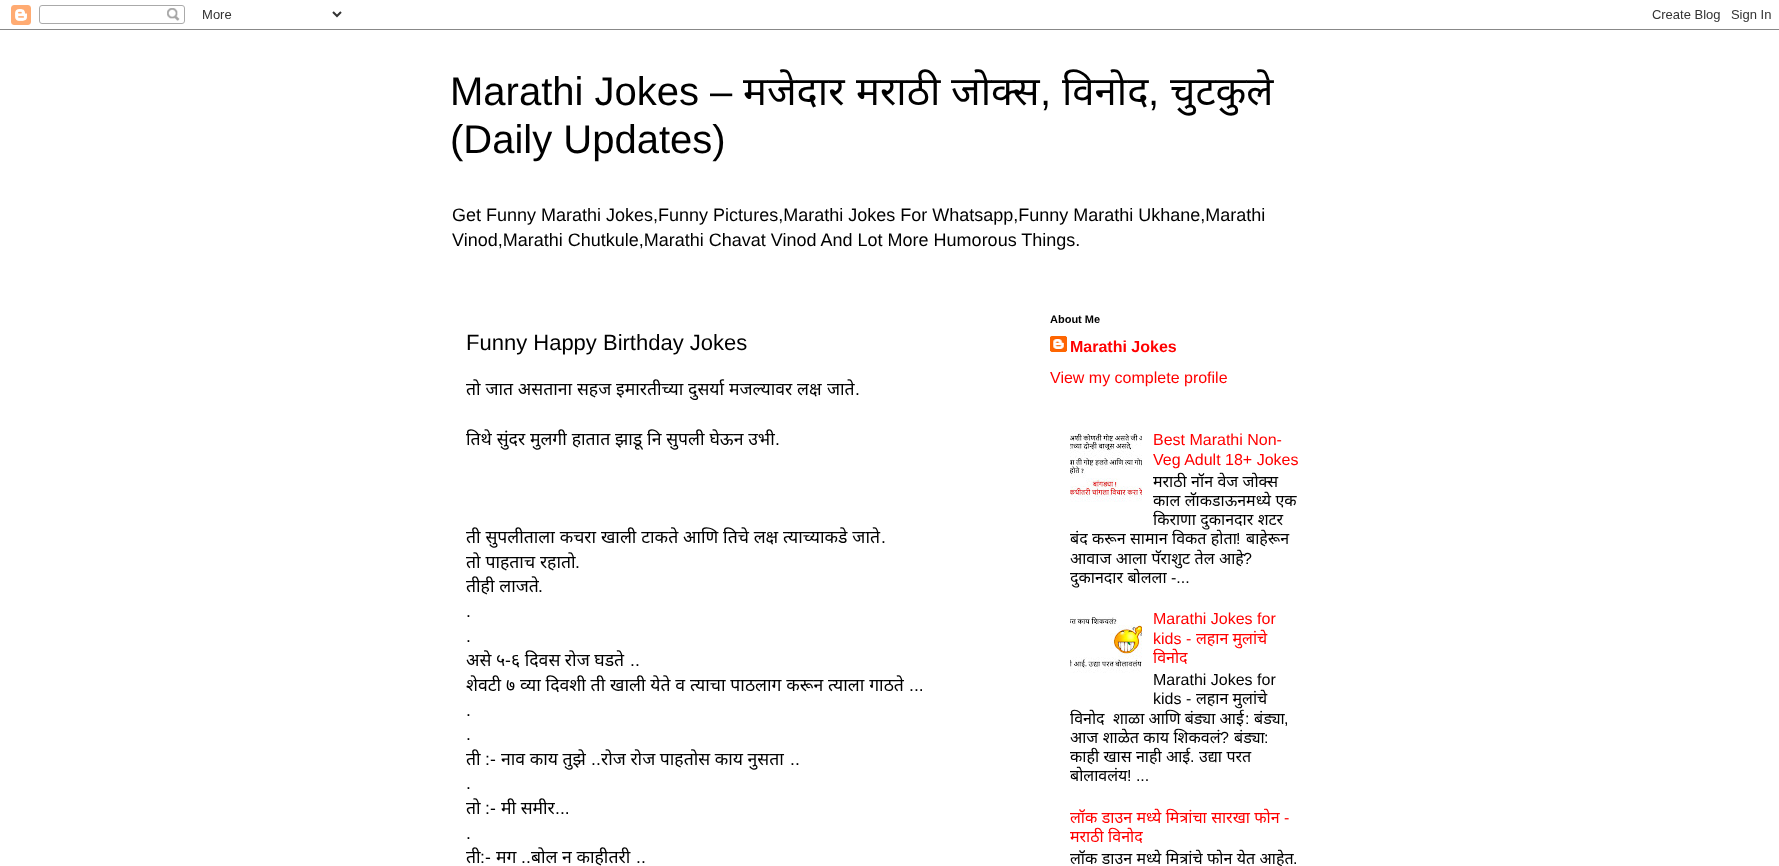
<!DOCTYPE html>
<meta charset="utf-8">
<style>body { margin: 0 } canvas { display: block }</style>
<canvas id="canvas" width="1779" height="866"></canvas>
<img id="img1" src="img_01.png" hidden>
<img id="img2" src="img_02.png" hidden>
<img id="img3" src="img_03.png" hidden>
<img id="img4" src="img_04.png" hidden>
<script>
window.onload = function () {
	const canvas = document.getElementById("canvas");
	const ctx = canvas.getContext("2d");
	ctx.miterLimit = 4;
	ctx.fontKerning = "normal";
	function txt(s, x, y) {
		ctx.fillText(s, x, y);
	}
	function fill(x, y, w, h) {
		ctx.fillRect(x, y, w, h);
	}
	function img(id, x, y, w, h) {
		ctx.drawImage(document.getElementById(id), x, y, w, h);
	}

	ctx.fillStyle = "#FFFFFF";
	fill(0, 0, 1779, 866);
	img("img1", 0, 5, 1779, 25);
	img("img2", 1050, 336, 17, 16);
	img("img3", 1070, 430, 72, 72);
	img("img4", 1070, 617, 72, 56);
	ctx.font = "40px Liberation Sans";
	ctx.fillStyle = "#000000";
	txt("Marathi Jokes –", 450, 105);
	ctx.font = "40px Noto Sans";
	txt("मजेदार", 743, 105);
	txt("मराठी", 856, 105);
	txt("जोक्स", 951, 105);
	ctx.font = "40px Liberation Sans";
	txt(",", 1040, 105);
	ctx.font = "40px Noto Sans";
	txt("विनोद", 1062, 105);
	ctx.font = "40px Liberation Sans";
	txt(",", 1148, 105);
	ctx.font = "40px Noto Sans";
	txt("चुटकुले", 1170, 105);
	ctx.font = "40px Liberation Sans";
	txt("(Daily Updates)", 450, 153);
	ctx.font = "18px Liberation Sans";
	txt("Get Funny Marathi Jokes,Funny Pictures,Marathi Jokes For Whatsapp,Funny Marathi Ukhane,Marathi", 452, 221);
	txt("Vinod,Marathi Chutkule,Marathi Chavat Vinod And Lot More Humorous Things.", 452, 246);
	ctx.font = "22px Liberation Sans";
	txt("Funny Happy Birthday Jokes", 466, 350);
	ctx.wordSpacing = "0.25px";
	ctx.font = "17.6px Noto Sans";
	txt("तो जात असताना सहज इमारतीच्या दुसर्या मजल्यावर लक्ष", 466, 395);
	ctx.wordSpacing = "0px";
	txt("जाते", 827, 395);
	ctx.font = "17.6px Liberation Sans";
	txt(".", 855, 395);
	ctx.wordSpacing = "0.25px";
	ctx.font = "17.6px Noto Sans";
	txt("तिथे सुंदर मुलगी हातात झाडू नि सुपली घेऊन उभी", 466, 445);
	ctx.wordSpacing = "0px";
	ctx.font = "17.6px Liberation Sans";
	txt(".", 775, 445);
	ctx.wordSpacing = "0.25px";
	ctx.font = "17.6px Noto Sans";
	txt("ती सुपलीताला कचरा खाली टाकते आणि तिचे लक्ष", 466, 543);
	txt("त्याच्याकडे जाते", 783, 543);
	ctx.wordSpacing = "0px";
	ctx.font = "17.6px Liberation Sans";
	txt(".", 881, 543);
	ctx.wordSpacing = "0.25px";
	ctx.font = "17.6px Noto Sans";
	txt("तो पाहताच रहातो", 466, 568);
	ctx.wordSpacing = "0px";
	ctx.font = "17.6px Liberation Sans";
	txt(".", 575, 568);
	ctx.wordSpacing = "0.25px";
	ctx.font = "17.6px Noto Sans";
	txt("तीही लाजते", 466, 592);
	ctx.wordSpacing = "0px";
	ctx.font = "17.6px Liberation Sans";
	txt(".", 538, 592);
	txt(".", 466, 617);
	txt(".", 466, 642);
	ctx.font = "17.6px Noto Sans";
	txt("असे ५", 466, 666);
	ctx.font = "17.6px Liberation Sans";
	txt("-", 505, 666);
	ctx.font = "17.6px Noto Sans";
	txt("६ दिवस रोज घडते", 511, 666);
	ctx.font = "17.6px Liberation Sans";
	txt("..", 630, 666);
	ctx.wordSpacing = "0.25px";
	ctx.font = "17.6px Noto Sans";
	txt("शेवटी ७ व्या दिवशी ती खाली येते व त्याचा पाठलाग करून", 466, 691);
	txt("त्याला गाठते", 828, 691);
	ctx.wordSpacing = "0px";
	ctx.font = "17.6px Liberation Sans";
	txt("...", 909, 691);
	txt(".", 466, 716);
	txt(".", 466, 740);
	ctx.font = "17.6px Noto Sans";
	txt("ती", 466, 765);
	ctx.font = "17.6px Liberation Sans";
	txt(":-", 485, 765);
	ctx.font = "17.6px Noto Sans";
	txt("नाव काय तुझे", 501, 765);
	ctx.font = "17.6px Liberation Sans";
	txt("..", 591, 765);
	ctx.font = "17.6px Noto Sans";
	txt("रोज रोज पाहतोस काय नुसता", 601, 765);
	ctx.font = "17.6px Liberation Sans";
	txt("..", 790, 765);
	txt(".", 466, 789);
	ctx.font = "17.6px Noto Sans";
	txt("तो", 466, 814);
	ctx.font = "17.6px Liberation Sans";
	txt(":-", 485, 814);
	ctx.font = "17.6px Noto Sans";
	txt("मी समीर", 501, 814);
	ctx.font = "17.6px Liberation Sans";
	txt("...", 555, 814);
	txt(".", 466, 839);
	ctx.font = "17.6px Noto Sans";
	txt("ती", 466, 863);
	ctx.font = "17.6px Liberation Sans";
	txt(":-", 480, 863);
	ctx.font = "17.6px Noto Sans";
	txt("मग", 496, 863);
	ctx.font = "17.6px Liberation Sans";
	txt("..", 521, 863);
	ctx.font = "17.6px Noto Sans";
	txt("बोल न काहीतरी", 531, 863);
	ctx.font = "17.6px Liberation Sans";
	txt("..", 636, 863);
	ctx.font = "bold 11px Liberation Sans";
	txt("About Me", 1050, 323);
	ctx.font = "bold 16px Liberation Sans";
	ctx.fillStyle = "#FF0000";
	txt("Marathi Jokes", 1070, 352);
	ctx.font = "16px Liberation Sans";
	txt("View my complete profile", 1050, 383);
	txt("Best Marathi Non-", 1153, 445);
	txt("Veg Adult 18+ Jokes", 1153, 465);
	ctx.wordSpacing = "0.25px";
	ctx.font = "16px Noto Sans";
	ctx.fillStyle = "#000000";
	txt("मराठी नॉन वेज जोक्स", 1153, 487);
	txt("काल लॅाकडाऊनमध्ये एक", 1153, 506);
	txt("किराणा दुकानदार शटर", 1153, 525);
	txt("बंद करून सामान विकत होता", 1070, 544);
	ctx.wordSpacing = "0px";
	ctx.font = "16px Liberation Sans";
	txt("!", 1236, 544);
	ctx.font = "16px Noto Sans";
	txt("बाहेरून", 1246, 544);
	ctx.wordSpacing = "0.25px";
	txt("आवाज आला पॅराशुट तेल आहे", 1070, 564);
	ctx.wordSpacing = "0px";
	ctx.font = "16px Liberation Sans";
	txt("?", 1243, 564);
	ctx.wordSpacing = "0.25px";
	ctx.font = "16px Noto Sans";
	txt("दुकानदार बोलला", 1070, 583);
	ctx.wordSpacing = "0px";
	ctx.font = "16px Liberation Sans";
	txt("-...", 1171, 583);
	ctx.fillStyle = "#FF0000";
	txt("Marathi Jokes for", 1153, 624);
	txt("kids -", 1153, 644);
	ctx.font = "16px Noto Sans";
	txt("लहान मुलांचे", 1196, 644);
	txt("विनोद", 1153, 663);
	ctx.font = "16px Liberation Sans";
	ctx.fillStyle = "#000000";
	txt("Marathi Jokes for", 1153, 685);
	txt("kids -", 1153, 704);
	ctx.font = "16px Noto Sans";
	txt("लहान मुलांचे", 1196, 704);
	txt("विनोद", 1070, 724);
	txt("शाळा आणि बंड्या आई", 1113, 724);
	ctx.font = "16px Liberation Sans";
	txt(":", 1245, 724);
	ctx.font = "16px Noto Sans";
	txt("बंड्या", 1254, 724);
	ctx.font = "16px Liberation Sans";
	txt(",", 1284, 724);
	ctx.wordSpacing = "0.25px";
	ctx.font = "16px Noto Sans";
	txt("आज शाळेत काय शिकवलं", 1070, 743);
	ctx.wordSpacing = "0px";
	ctx.font = "16px Liberation Sans";
	txt("?", 1220, 743);
	ctx.font = "16px Noto Sans";
	txt("बंड्या", 1234, 743);
	ctx.font = "16px Liberation Sans";
	txt(":", 1264, 743);
	ctx.wordSpacing = "0.25px";
	ctx.font = "16px Noto Sans";
	txt("काही खास नाही आई", 1070, 762);
	ctx.wordSpacing = "0px";
	ctx.font = "16px Liberation Sans";
	txt(".", 1190, 762);
	ctx.wordSpacing = "0.25px";
	ctx.font = "16px Noto Sans";
	txt("उद्या परत", 1199, 762);
	ctx.wordSpacing = "0px";
	txt("बोलावलंय", 1070, 781);
	ctx.font = "16px Liberation Sans";
	txt("! ...", 1127, 781);
	ctx.wordSpacing = "0.25px";
	ctx.font = "16px Noto Sans";
	ctx.fillStyle = "#FF0000";
	txt("लॉक डाउन मध्ये मित्रांचा सारखा फोन", 1070, 823);
	ctx.wordSpacing = "0px";
	ctx.font = "16px Liberation Sans";
	txt("-", 1284, 823);
	ctx.wordSpacing = "0.25px";
	ctx.font = "16px Noto Sans";
	txt("मराठी विनोद", 1070, 842);
	ctx.fillStyle = "#000000";
	txt("लॉक डाउन मध्ये मित्रांचे फोन येत आहेत", 1070, 864);
	ctx.wordSpacing = "0px";
	ctx.font = "16px Liberation Sans";
	txt(".", 1293, 864);
};
</script>
